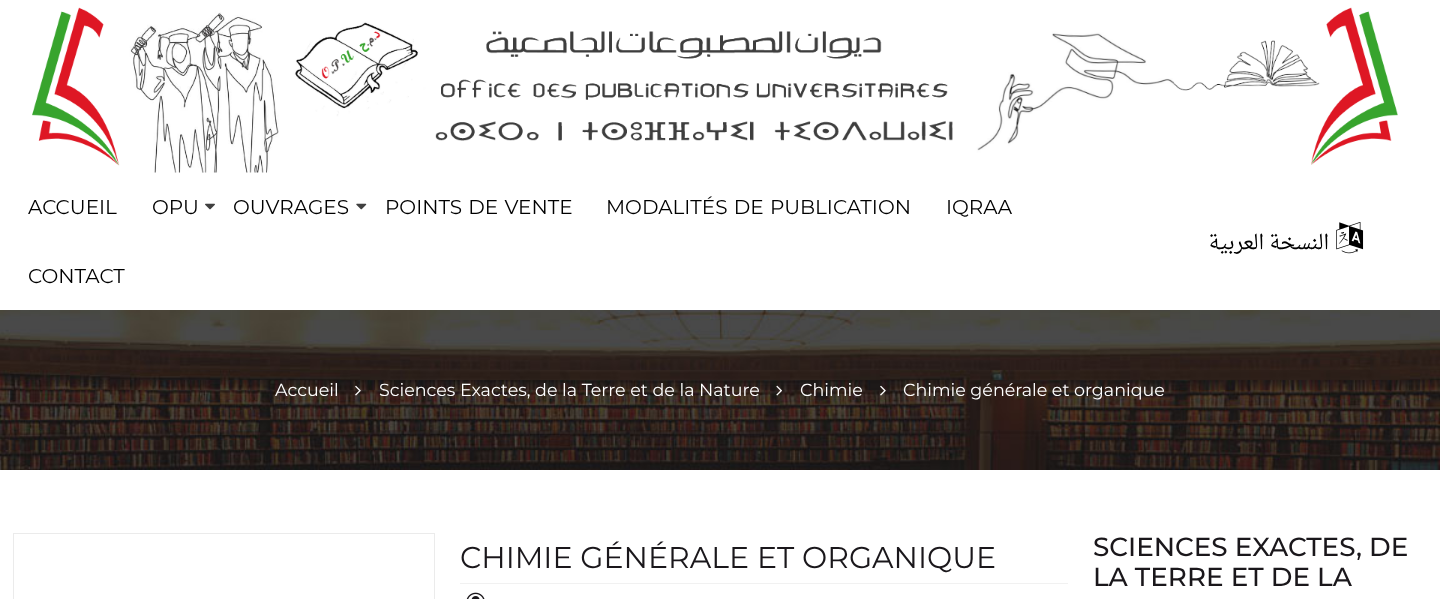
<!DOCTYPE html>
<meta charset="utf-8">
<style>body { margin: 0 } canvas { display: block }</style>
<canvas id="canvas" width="1440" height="599"></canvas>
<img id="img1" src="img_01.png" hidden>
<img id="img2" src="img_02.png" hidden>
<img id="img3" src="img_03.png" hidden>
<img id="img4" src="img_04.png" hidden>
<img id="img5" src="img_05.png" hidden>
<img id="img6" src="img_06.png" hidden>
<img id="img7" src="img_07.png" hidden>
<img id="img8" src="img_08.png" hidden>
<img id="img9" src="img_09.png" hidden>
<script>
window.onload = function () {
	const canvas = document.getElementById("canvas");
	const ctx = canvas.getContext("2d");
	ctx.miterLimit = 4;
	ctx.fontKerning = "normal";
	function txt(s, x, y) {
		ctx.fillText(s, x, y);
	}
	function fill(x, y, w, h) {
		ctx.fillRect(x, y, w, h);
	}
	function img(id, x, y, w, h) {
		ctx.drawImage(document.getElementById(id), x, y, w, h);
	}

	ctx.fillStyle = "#FFFFFF";
	fill(0, 0, 1440, 599);
	img("img1", 32, 7, 1366, 166);
	img("img2", 205, 203, 10, 7);
	img("img3", 356, 203, 11, 7);
	img("img4", 1336, 222, 28, 32);
	img("img5", 0, 310, 1440, 160);
	img("img6", 355, 385, 6, 11);
	img("img7", 776, 385, 6, 11);
	img("img8", 880, 385, 6, 11);
	ctx.strokeStyle = "#EBEBEB";
	ctx.strokeRect(13.5, 533.5, 421, 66);
	ctx.fillStyle = "#F1F1F1";
	fill(460, 583, 608, 1);
	img("img9", 466, 592, 19, 7);
	ctx.font = "20px Montserrat";
	ctx.fillStyle = "#000000";
	txt("ACCUEIL", 28, 214);
	txt("OPU", 152, 214);
	txt("OUVRAGES", 233, 214);
	ctx.wordSpacing = "1px";
	txt("POINTS DE VENTE", 385, 214);
	txt("MODALITÉS DE PUBLICATION", 606, 214);
	ctx.wordSpacing = "0px";
	txt("IQRAA", 946, 214);
	txt("CONTACT", 28, 283);
	ctx.direction = "rtl";
	ctx.font = "20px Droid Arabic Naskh";
	txt("النسخة العربية", 1329, 249);
	ctx.direction = "ltr";
	ctx.font = "17.5px Montserrat";
	ctx.fillStyle = "#FFFFFF";
	txt("Accueil", 275, 396);
	txt("Sciences Exactes, de la Terre et de la Nature", 379, 396);
	txt("Chimie", 800, 396);
	txt("Chimie générale et organique", 903, 396);
	ctx.font = "30px Montserrat";
	ctx.fillStyle = "#1A171B";
	txt("CHIMIE GÉNÉRALE ET ORGANIQUE", 460, 568);
	ctx.font = "500 26.25px Montserrat";
	txt("SCIENCES EXACTES, DE", 1093, 556);
	txt("LA TERRE ET DE LA", 1093, 586);
};
</script>
